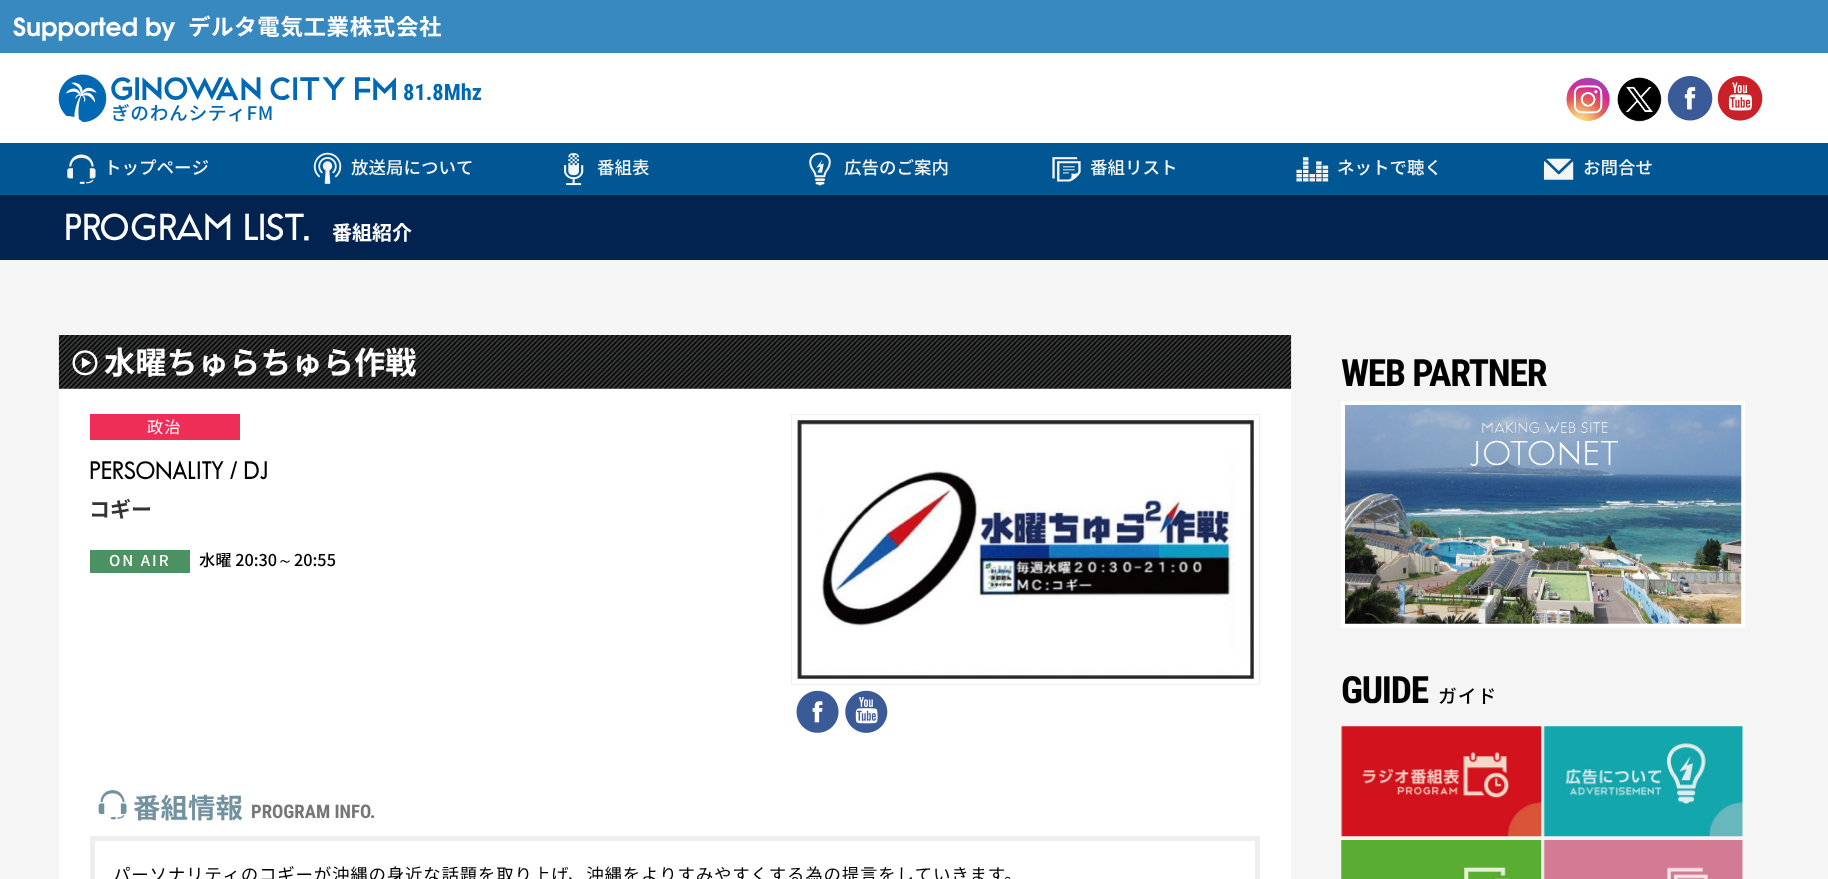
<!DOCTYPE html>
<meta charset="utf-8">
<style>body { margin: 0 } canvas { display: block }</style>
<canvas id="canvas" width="1828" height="879"></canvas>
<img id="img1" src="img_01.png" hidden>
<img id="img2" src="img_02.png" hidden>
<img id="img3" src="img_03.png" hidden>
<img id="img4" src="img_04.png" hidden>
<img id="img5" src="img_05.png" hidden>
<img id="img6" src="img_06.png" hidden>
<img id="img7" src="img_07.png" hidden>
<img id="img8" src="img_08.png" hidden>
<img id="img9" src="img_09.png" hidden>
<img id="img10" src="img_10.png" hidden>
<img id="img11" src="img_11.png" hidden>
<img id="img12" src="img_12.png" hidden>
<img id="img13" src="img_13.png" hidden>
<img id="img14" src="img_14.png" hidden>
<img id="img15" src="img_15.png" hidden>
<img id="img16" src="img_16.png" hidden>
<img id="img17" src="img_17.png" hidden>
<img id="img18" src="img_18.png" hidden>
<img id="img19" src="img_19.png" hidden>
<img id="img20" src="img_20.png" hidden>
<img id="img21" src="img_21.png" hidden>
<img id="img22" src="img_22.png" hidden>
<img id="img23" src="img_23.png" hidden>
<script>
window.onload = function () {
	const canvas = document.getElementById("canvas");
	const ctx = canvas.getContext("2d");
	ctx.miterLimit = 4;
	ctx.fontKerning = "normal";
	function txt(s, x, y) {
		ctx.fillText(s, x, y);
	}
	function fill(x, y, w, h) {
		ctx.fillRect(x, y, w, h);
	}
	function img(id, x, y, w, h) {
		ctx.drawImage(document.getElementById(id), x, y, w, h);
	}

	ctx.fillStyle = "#F5F5F5";
	fill(0, 0, 1828, 879);
	ctx.fillStyle = "#3989C1";
	fill(0, 0, 1828, 53);
	ctx.fillStyle = "#FFFFFF";
	fill(0, 53, 1828, 90);
	img("img1", 58, 74, 49, 49);
	img("img2", 1566, 77, 44, 45);
	img("img3", 1617, 77, 45, 45);
	img("img4", 1667, 76, 46, 45);
	img("img5", 1717, 76, 46, 45);
	ctx.fillStyle = "#005794";
	fill(0, 143, 1828, 52);
	img("img6", 67, 154, 29, 30);
	img("img7", 313, 152, 29, 32);
	img("img8", 564, 153, 20, 33);
	img("img9", 809, 152, 22, 34);
	img("img10", 1052, 157, 29, 25);
	img("img11", 1296, 157, 33, 25);
	img("img12", 1543, 158, 31, 22);
	ctx.fillStyle = "#02234F";
	fill(0, 195, 1828, 65);
	ctx.fillStyle = "#FFFFFF";
	fill(59, 388, 1232, 491);
	img("img13", 58, 335, 1234, 54);
	img("img14", 72, 350, 26, 26);
	ctx.fillStyle = "#EF2E58";
	fill(90, 414, 150, 26);
	ctx.fillStyle = "#4B9161";
	fill(90, 550, 100, 23);
	ctx.strokeStyle = "#EEEEEE";
	ctx.strokeRect(791.5, 414.5, 468, 270);
	img("img15", 797, 420, 457, 259);
	img("img16", 796, 690, 43, 43);
	img("img17", 845, 690, 43, 43);
	img("img18", 98, 790, 29, 30);
	ctx.lineWidth = 5;
	ctx.strokeRect(92.5, 838.5, 1165, 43);
	ctx.fillStyle = "#FFFFFF";
	fill(1341, 401, 404, 227);
	img("img19", 1345, 405, 397, 219);
	img("img20", 1341, 726, 201, 111);
	img("img21", 1543, 726, 200, 111);
	img("img22", 1341, 840, 201, 39);
	img("img23", 1543, 840, 200, 39);
	ctx.font = "bold 25px TeX Gyre Adventor";
	txt("Supported by", 13, 36);
	ctx.letterSpacing = "0.6px";
	ctx.font = "bold 22.5px Noto Sans JP";
	txt("デルタ電気工業株式会社", 188, 35);
	ctx.letterSpacing = "-3.25px";
	ctx.font = "42.5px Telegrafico";
	ctx.fillStyle = "#0168B3";
	txt("GINOWAN CITY FM", 108, 100);
	ctx.letterSpacing = "0px";
	ctx.font = "bold 22.5px Roboto Condensed";
	txt("81.8Mhz", 403, 100);
	ctx.letterSpacing = "0.6px";
	ctx.font = "500 18.75px Noto Sans JP";
	txt("ぎのわんシティFM", 111, 120);
	ctx.letterSpacing = "0px";
	ctx.font = "500 17.5px Noto Sans JP";
	ctx.fillStyle = "#F5F5F5";
	txt("トップページ", 104, 174);
	txt("放送局について", 351, 174);
	txt("番組表", 597, 174);
	txt("広告のご案内", 844, 174);
	txt("番組リスト", 1090, 174);
	txt("ネットで聴く", 1337, 174);
	txt("お問合せ", 1583, 174);
	ctx.font = "bold 35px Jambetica";
	ctx.fillStyle = "#FFFFFF";
	txt("PROGRAM LIST.", 64, 240);
	ctx.font = "bold 20px Noto Sans JP";
	txt("番組紹介", 332, 240);
	ctx.font = "bold 31.25px Noto Sans JP";
	txt("水曜ちゅらちゅら作戦", 104, 374);
	ctx.letterSpacing = "1px";
	ctx.font = "16.25px Noto Sans JP";
	txt("政治", 147, 433);
	ctx.letterSpacing = "0px";
	ctx.font = "bold 23.75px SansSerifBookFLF";
	ctx.fillStyle = "#000000";
	txt("PERSONALITY / DJ", 89, 479);
	ctx.font = "bold 21px Noto Sans JP";
	ctx.fillStyle = "#333333";
	txt("コギー", 89, 517);
	ctx.letterSpacing = "2px";
	ctx.font = "500 15px Noto Sans JP";
	ctx.fillStyle = "#FFFFFF";
	txt("ON AIR", 109, 566);
	ctx.letterSpacing = "0px";
	ctx.font = "500 16.25px Noto Sans JP";
	ctx.fillStyle = "#000000";
	txt("水曜 20:30", 199, 566);
	ctx.font = "500 16.25px WenQuanYi Zen Hei";
	txt("～", 277, 566);
	ctx.font = "500 16.25px Noto Sans JP";
	txt("20:55", 294, 566);
	ctx.font = "bold 27.5px Noto Sans JP";
	ctx.fillStyle = "#7392A0";
	txt("番組情報", 133, 818);
	ctx.font = "bold 18.75px Roboto Condensed";
	ctx.fillStyle = "#767676";
	txt("PROGRAM INFO.", 251, 818);
	ctx.letterSpacing = "0.75px";
	ctx.font = "17.5px Noto Sans JP";
	ctx.fillStyle = "#000000";
	txt("パーソナリティのコギーが沖縄の身近な話題を取り上げ、沖縄をよりすみやすくする為の提言をしていきます。", 113, 881);
	ctx.letterSpacing = "-1.25px";
	ctx.font = "bold 37.5px Roboto Condensed";
	txt("WEB PARTNER", 1341, 386);
	txt("GUIDE", 1341, 703);
	ctx.letterSpacing = "1px";
	ctx.font = "500 18.75px Noto Sans JP";
	txt("ガイド", 1438, 703);
};
</script>
